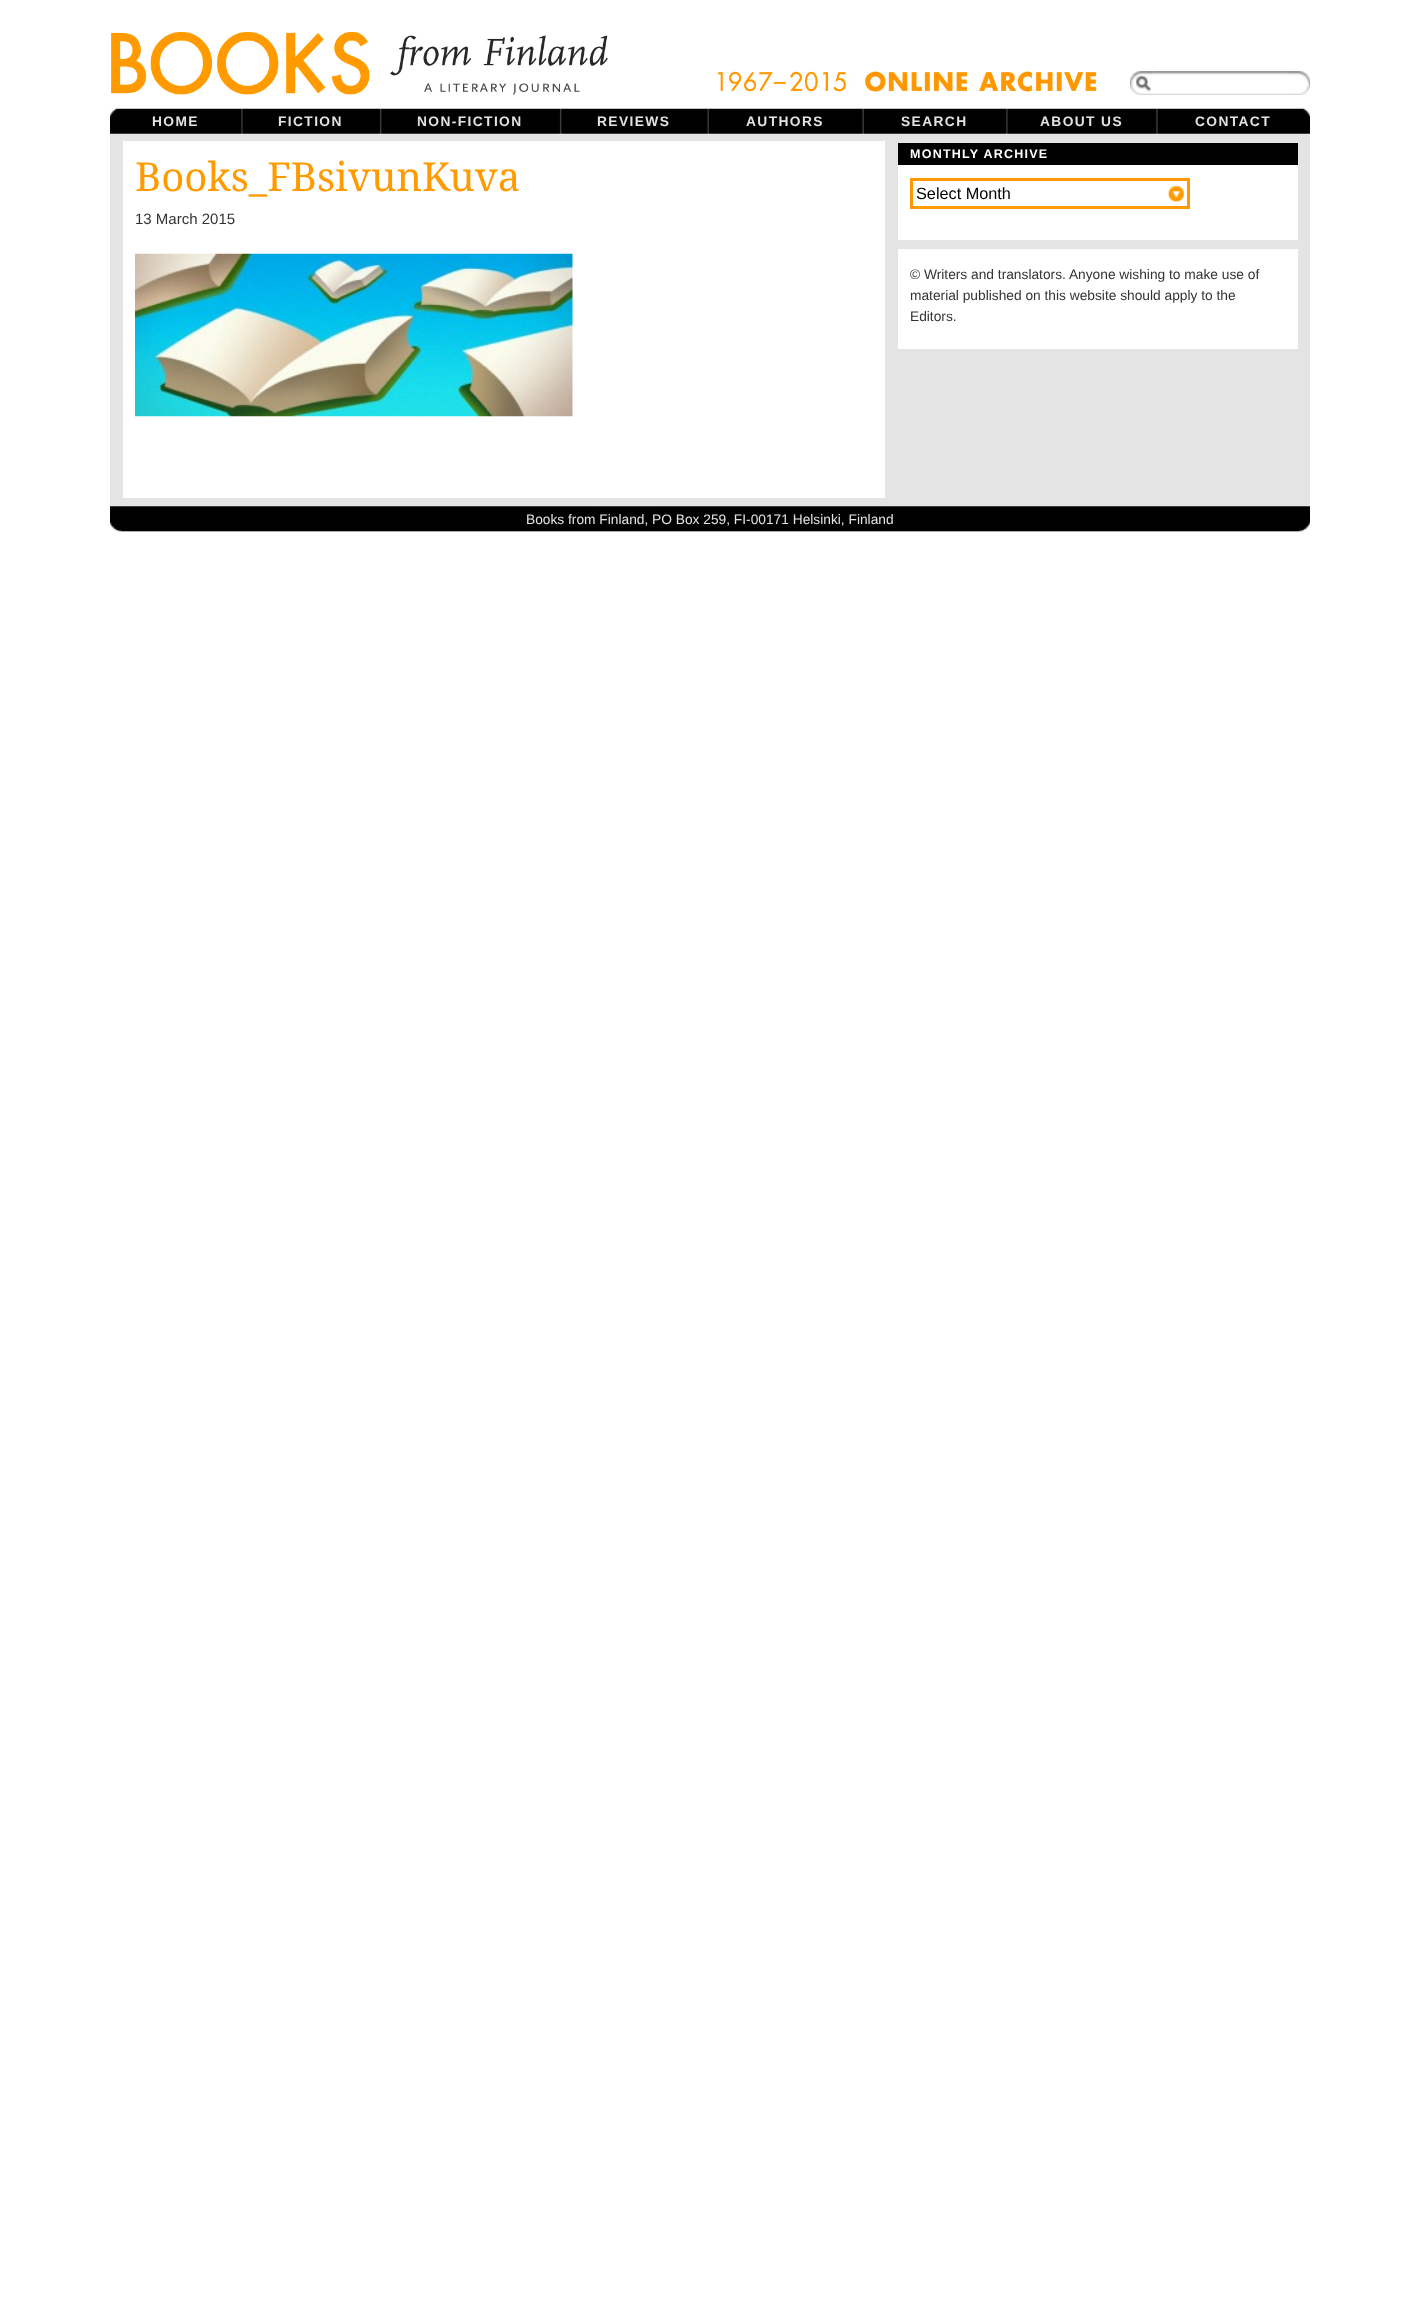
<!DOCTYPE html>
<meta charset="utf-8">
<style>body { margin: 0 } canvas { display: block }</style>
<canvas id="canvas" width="1419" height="2301"></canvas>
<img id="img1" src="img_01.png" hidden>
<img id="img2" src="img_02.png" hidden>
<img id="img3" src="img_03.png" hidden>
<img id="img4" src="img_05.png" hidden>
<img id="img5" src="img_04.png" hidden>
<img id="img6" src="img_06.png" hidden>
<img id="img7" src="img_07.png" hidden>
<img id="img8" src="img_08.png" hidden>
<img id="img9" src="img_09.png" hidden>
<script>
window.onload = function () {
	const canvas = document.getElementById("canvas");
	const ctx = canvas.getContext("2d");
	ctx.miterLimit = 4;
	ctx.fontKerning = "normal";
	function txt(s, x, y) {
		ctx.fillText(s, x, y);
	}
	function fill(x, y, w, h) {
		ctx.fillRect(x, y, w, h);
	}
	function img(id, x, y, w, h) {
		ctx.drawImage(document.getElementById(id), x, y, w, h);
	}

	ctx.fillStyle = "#FFFFFF";
	fill(0, 0, 1419, 2301);
	img("img1", 111, 32, 497, 63);
	img("img2", 717, 71, 382, 21);
	img("img3", 1130, 71, 24, 24);
	img("img4", 1286, 71, 24, 24);
	img("img5", 1154, 71, 133, 24);
	img("img6", 110, 108, 1200, 26);
	ctx.fillStyle = "#E4E4E4";
	fill(110, 134, 1200, 372);
	ctx.fillStyle = "#FFFFFF";
	fill(123, 141, 762, 357);
	img("img7", 135, 253, 438, 164);
	fill(898, 165, 400, 75);
	ctx.fillStyle = "#000000";
	fill(898, 143, 400, 22);
	img("img8", 1168, 186, 16, 16);
	ctx.strokeStyle = "#FF9900";
	ctx.lineWidth = 3;
	ctx.strokeRect(911.5, 179.5, 277, 28);
	ctx.fillStyle = "#FFFFFF";
	fill(898, 249, 400, 100);
	img("img9", 110, 506, 1200, 26);
	ctx.letterSpacing = "1.4px";
	ctx.font = "bold 13.75px Liberation Sans";
	ctx.fillStyle = "#E3E3E3";
	txt("HOME", 152, 126);
	txt("FICTION", 278, 126);
	txt("NON-FICTION", 417, 126);
	txt("REVIEWS", 597, 126);
	txt("AUTHORS", 746, 126);
	txt("SEARCH", 901, 126);
	txt("ABOUT US", 1040, 126);
	txt("CONTACT", 1195, 126);
	ctx.letterSpacing = "0px";
	ctx.font = "40px Droid Serif";
	ctx.fillStyle = "#FF9B00";
	txt("Books_FBsivunKuva", 135, 191);
	ctx.font = "15px Liberation Sans";
	ctx.fillStyle = "#333333";
	txt("13 March 2015", 135, 224);
	ctx.letterSpacing = "1.25px";
	ctx.font = "bold 12.5px Liberation Sans";
	ctx.fillStyle = "#FFFFFF";
	txt("MONTHLY ARCHIVE", 910, 158);
	ctx.letterSpacing = "0px";
	ctx.font = "16.25px Liberation Sans";
	ctx.fillStyle = "#000000";
	txt("Select Month", 916, 199);
	ctx.font = "13.75px Liberation Sans";
	ctx.fillStyle = "#333333";
	txt("© Writers and translators. Anyone wishing to make use of", 910, 279);
	txt("material published on this website should apply to the", 910, 300);
	txt("Editors.", 910, 321);
	ctx.fillStyle = "#E3E3E3";
	txt("Books from Finland, PO Box 259, FI-00171 Helsinki, Finland", 526, 524);
};
</script>
